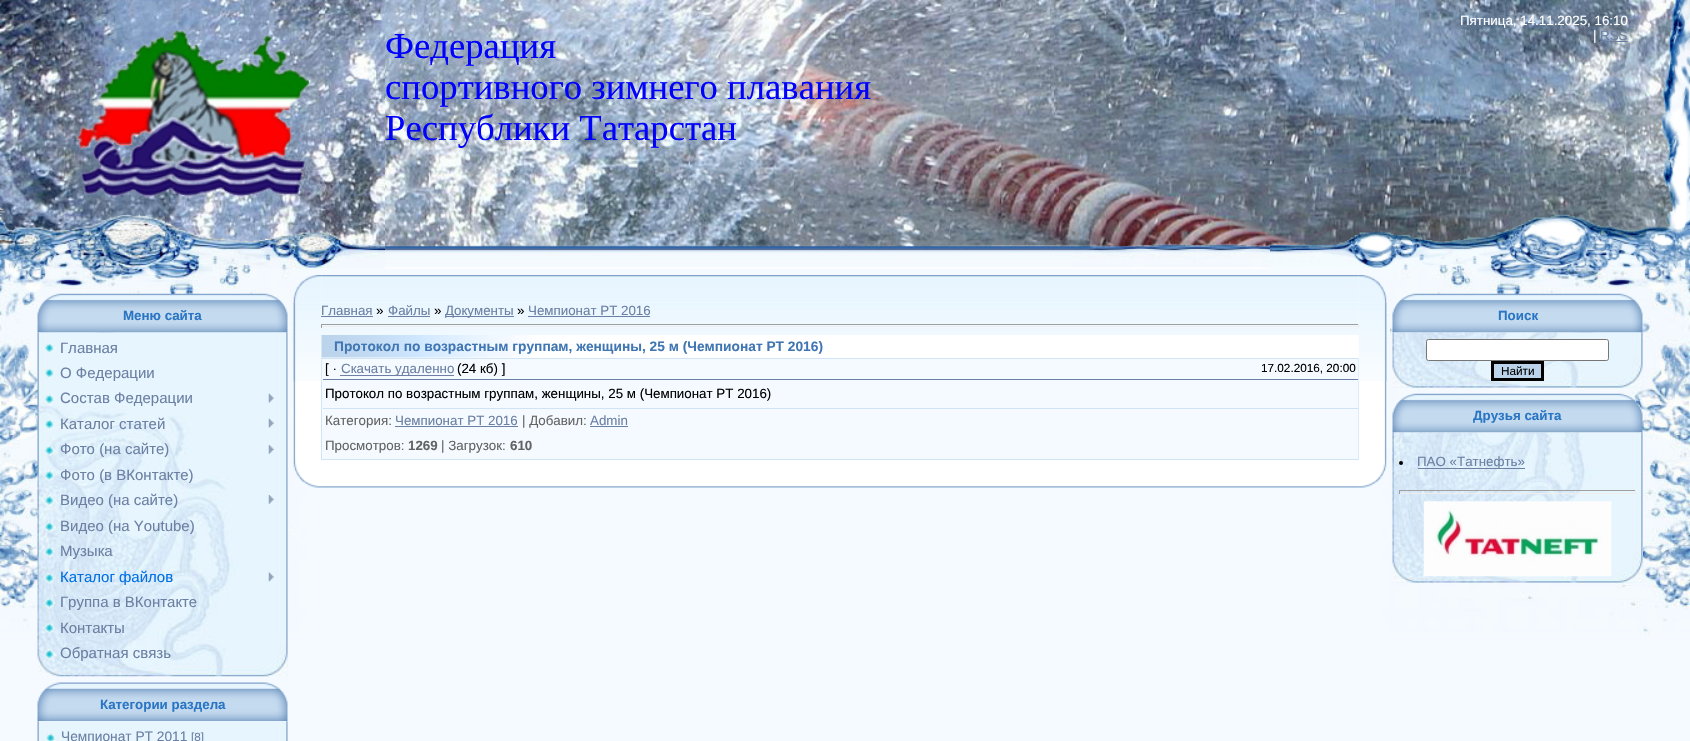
#include "include/core/SkBlurTypes.h"
#include "include/core/SkCanvas.h"
#include "include/core/SkData.h"
#include "include/core/SkFont.h"
#include "include/core/SkFontMgr.h"
#include "include/core/SkImage.h"
#include "include/core/SkMaskFilter.h"
#include "include/core/SkPaint.h"
#include "include/core/SkPathBuilder.h"
#include "include/core/SkTextBlob.h"
#include "include/effects/SkDashPathEffect.h"
#include "include/effects/SkGradientShader.h"
#include "include/utils/SkParsePath.h"

extern sk_sp<SkFontMgr> fontMgr;

void draw(SkCanvas* canvas) {
  SkPaint p;
  p.setAntiAlias(true);
  canvas->clear(SkColorSetRGB(244, 250, 255));
  canvas->drawImageRect(SkImages::DeferredFromEncodedData(SkData::MakeFromFileName("images/1.png")), SkRect::MakeLTRB(0, 0, 1690, 269), SkSamplingOptions());
  canvas->drawImageRect(SkImages::DeferredFromEncodedData(SkData::MakeFromFileName("images/5.png")), SkRect::MakeLTRB(0, 268, 308, 636), SkSamplingOptions());
  canvas->drawImageRect(SkImages::DeferredFromEncodedData(SkData::MakeFromFileName("images/2.png")), SkRect::MakeLTRB(0, 0, 385, 269), SkSamplingOptions());
  canvas->drawImageRect(SkImages::DeferredFromEncodedData(SkData::MakeFromFileName("images/3.png")), SkRect::MakeLTRB(1270, 0, 1690, 269), SkSamplingOptions());
  p.setColor(SkColorSetRGB(107, 128, 163));
  canvas->drawRect(SkRect::MakeLTRB(1600, 41, 1628, 42), p);
  canvas->drawImageRect(SkImages::DeferredFromEncodedData(SkData::MakeFromFileName("images/4.png")), SkRect::MakeLTRB(1382, 268, 1690, 636), SkSamplingOptions());
  canvas->drawImageRect(SkImages::DeferredFromEncodedData(SkData::MakeFromFileName("images/6.png")), SkRect::MakeLTRB(37, 293, 288, 333), SkSamplingOptions());
  p.setColor(SkColorSetRGB(231, 245, 255));
  canvas->drawRect(SkRect::MakeLTRB(287, 333, 288, 676), p);
  canvas->drawImageRect(SkImages::DeferredFromEncodedData(SkData::MakeFromFileName("images/7.png")), SkRect::MakeLTRB(37, 332, 288, 677), SkSamplingOptions());
  canvas->drawImageRect(SkImages::DeferredFromEncodedData(SkData::MakeFromFileName("images/8.png")), SkRect::MakeLTRB(44, 343, 55, 354), SkSamplingOptions());
  canvas->drawImageRect(SkImages::DeferredFromEncodedData(SkData::MakeFromFileName("images/8.png")), SkRect::MakeLTRB(44, 368, 55, 379), SkSamplingOptions());
  canvas->drawImageRect(SkImages::DeferredFromEncodedData(SkData::MakeFromFileName("images/9.png")), SkRect::MakeLTRB(44, 395, 55, 405), SkSamplingOptions());
  canvas->drawImageRect(SkImages::DeferredFromEncodedData(SkData::MakeFromFileName("images/10.png")), SkRect::MakeLTRB(268, 393, 274, 403), SkSamplingOptions());
  canvas->drawImageRect(SkImages::DeferredFromEncodedData(SkData::MakeFromFileName("images/11.png")), SkRect::MakeLTRB(44, 420, 55, 430), SkSamplingOptions());
  canvas->drawImageRect(SkImages::DeferredFromEncodedData(SkData::MakeFromFileName("images/10.png")), SkRect::MakeLTRB(268, 418, 274, 428), SkSamplingOptions());
  canvas->drawImageRect(SkImages::DeferredFromEncodedData(SkData::MakeFromFileName("images/12.png")), SkRect::MakeLTRB(44, 445, 55, 457), SkSamplingOptions());
  canvas->drawImageRect(SkImages::DeferredFromEncodedData(SkData::MakeFromFileName("images/13.png")), SkRect::MakeLTRB(268, 445, 274, 454), SkSamplingOptions());
  canvas->drawImageRect(SkImages::DeferredFromEncodedData(SkData::MakeFromFileName("images/14.png")), SkRect::MakeLTRB(43, 471, 55, 482), SkSamplingOptions());
  canvas->drawImageRect(SkImages::DeferredFromEncodedData(SkData::MakeFromFileName("images/15.png")), SkRect::MakeLTRB(44, 495, 55, 507), SkSamplingOptions());
  canvas->drawImageRect(SkImages::DeferredFromEncodedData(SkData::MakeFromFileName("images/13.png")), SkRect::MakeLTRB(268, 495, 274, 504), SkSamplingOptions());
  canvas->drawImageRect(SkImages::DeferredFromEncodedData(SkData::MakeFromFileName("images/16.png")), SkRect::MakeLTRB(44, 521, 55, 533), SkSamplingOptions());
  canvas->drawImageRect(SkImages::DeferredFromEncodedData(SkData::MakeFromFileName("images/17.png")), SkRect::MakeLTRB(44, 546, 55, 558), SkSamplingOptions());
  canvas->drawImageRect(SkImages::DeferredFromEncodedData(SkData::MakeFromFileName("images/18.png")), SkRect::MakeLTRB(43, 572, 55, 584), SkSamplingOptions());
  canvas->drawImageRect(SkImages::DeferredFromEncodedData(SkData::MakeFromFileName("images/19.png")), SkRect::MakeLTRB(268, 572, 274, 582), SkSamplingOptions());
  canvas->drawImageRect(SkImages::DeferredFromEncodedData(SkData::MakeFromFileName("images/20.png")), SkRect::MakeLTRB(43, 597, 55, 609), SkSamplingOptions());
  canvas->drawImageRect(SkImages::DeferredFromEncodedData(SkData::MakeFromFileName("images/21.png")), SkRect::MakeLTRB(44, 622, 55, 634), SkSamplingOptions());
  canvas->drawImageRect(SkImages::DeferredFromEncodedData(SkData::MakeFromFileName("images/22.png")), SkRect::MakeLTRB(43, 649, 55, 660), SkSamplingOptions());
  canvas->drawImageRect(SkImages::DeferredFromEncodedData(SkData::MakeFromFileName("images/23.png")), SkRect::MakeLTRB(37, 682, 288, 722), SkSamplingOptions());
  canvas->drawRect(SkRect::MakeLTRB(38, 721, 288, 741), p);
  canvas->drawImageRect(SkImages::DeferredFromEncodedData(SkData::MakeFromFileName("images/24.png")), SkRect::MakeLTRB(37, 721, 288, 741), SkSamplingOptions());
  canvas->drawImageRect(SkImages::DeferredFromEncodedData(SkData::MakeFromFileName("images/25.png")), SkRect::MakeLTRB(45, 733, 56, 741), SkSamplingOptions());
  canvas->drawImageRect(SkImages::DeferredFromEncodedData(SkData::MakeFromFileName("images/27.png")), SkRect::MakeLTRB(321, 275, 1359, 303), SkSamplingOptions());
  canvas->drawImageRect(SkImages::DeferredFromEncodedData(SkData::MakeFromFileName("images/29.png")), SkRect::MakeLTRB(293, 302, 321, 460), SkSamplingOptions());
  canvas->drawImageRect(SkImages::DeferredFromEncodedData(SkData::MakeFromFileName("images/26.png")), SkRect::MakeLTRB(293, 275, 322, 303), SkSamplingOptions());
  canvas->drawImageRect(SkImages::DeferredFromEncodedData(SkData::MakeFromFileName("images/31.png")), SkRect::MakeLTRB(321, 303, 1359, 335), SkSamplingOptions());
  p.setColor(SK_ColorWHITE);
  canvas->drawRect(SkRect::MakeLTRB(321, 335, 1359, 358), p);
  p.setStyle(SkPaint::kStroke_Style);
  p.setStrokeWidth(1);
  p.setColor(SkColorSetRGB(209, 228, 245));
  canvas->drawRect(SkRect::MakeLTRB(321.5f, 358.5f, 1358.5f, 459.5f), p);
  canvas->drawImageRect(SkImages::DeferredFromEncodedData(SkData::MakeFromFileName("images/33.png")), SkRect::MakeLTRB(1358, 302, 1387, 460), SkSamplingOptions());
  canvas->drawImageRect(SkImages::DeferredFromEncodedData(SkData::MakeFromFileName("images/28.png")), SkRect::MakeLTRB(1358, 275, 1387, 303), SkSamplingOptions());
  canvas->drawImageRect(SkImages::DeferredFromEncodedData(SkData::MakeFromFileName("images/32.png")), SkRect::MakeLTRB(321, 335, 532, 358), SkSamplingOptions());
  canvas->drawImageRect(SkImages::DeferredFromEncodedData(SkData::MakeFromFileName("images/30.png")), SkRect::MakeLTRB(293, 302, 322, 382), SkSamplingOptions());
  p.setStyle(SkPaint::kFill_Style);
  p.setColor(SkColorSetRGB(107, 128, 163));
  canvas->drawRect(SkRect::MakeLTRB(321, 316, 373, 317), p);
  canvas->drawRect(SkRect::MakeLTRB(388, 316, 430, 317), p);
  canvas->drawRect(SkRect::MakeLTRB(445, 316, 514, 317), p);
  canvas->drawRect(SkRect::MakeLTRB(528, 316, 650, 317), p);
  canvas->drawImageRect(SkImages::DeferredFromEncodedData(SkData::MakeFromFileName("images/34.png")), SkRect::MakeLTRB(1358, 302, 1387, 382), SkSamplingOptions());
  p.setColor(SkColorSetRGB(159, 159, 159));
  canvas->drawRect(SkRect::MakeLTRB(321, 324, 1359, 325), p);
  p.setColor(SkColorSetRGB(238, 238, 238));
  canvas->drawRect(SkRect::MakeLTRB(1358, 324, 1359, 328), p);
  canvas->drawRect(SkRect::MakeLTRB(321, 326, 1359, 327), p);
  p.setColor(SkColorSetRGB(159, 159, 159));
  canvas->drawRect(SkRect::MakeLTRB(321, 324, 322, 328), p);
  p.setColor(SkColorSetRGB(107, 128, 163));
  canvas->drawRect(SkRect::MakeLTRB(340, 375, 454, 376), p);
  canvas->drawRect(SkRect::MakeLTRB(323, 379, 1358, 380), p);
  p.setColor(SkColorSetRGB(209, 228, 245));
  canvas->drawRect(SkRect::MakeLTRB(323, 408, 1358, 409), p);
  p.setColor(SkColorSetRGB(107, 128, 163));
  canvas->drawRect(SkRect::MakeLTRB(395, 426, 518, 427), p);
  canvas->drawRect(SkRect::MakeLTRB(590, 426, 628, 427), p);
  canvas->drawImageRect(SkImages::DeferredFromEncodedData(SkData::MakeFromFileName("images/36.png")), SkRect::MakeLTRB(321, 460, 1359, 488), SkSamplingOptions());
  canvas->drawImageRect(SkImages::DeferredFromEncodedData(SkData::MakeFromFileName("images/35.png")), SkRect::MakeLTRB(293, 460, 322, 488), SkSamplingOptions());
  canvas->drawImageRect(SkImages::DeferredFromEncodedData(SkData::MakeFromFileName("images/37.png")), SkRect::MakeLTRB(1358, 460, 1387, 488), SkSamplingOptions());
  canvas->drawImageRect(SkImages::DeferredFromEncodedData(SkData::MakeFromFileName("images/38.png")), SkRect::MakeLTRB(1392, 293, 1643, 333), SkSamplingOptions());
  p.setColor(SkColorSetRGB(231, 245, 255));
  canvas->drawRect(SkRect::MakeLTRB(1393, 333, 1643, 388), p);
  canvas->drawImageRect(SkImages::DeferredFromEncodedData(SkData::MakeFromFileName("images/39.png")), SkRect::MakeLTRB(1392, 332, 1643, 388), SkSamplingOptions());
  p.setColor(SK_ColorWHITE);
  canvas->drawRoundRect(SkRect::MakeLTRB(1426.5f, 339.5f, 1608.5f, 360.5f), 2, 2, p);
  p.setStyle(SkPaint::kStroke_Style);
  p.setColor(SkColorSetRGB(118, 118, 118));
  canvas->drawRoundRect(SkRect::MakeLTRB(1426.5f, 339.5f, 1608.5f, 360.5f), 2, 2, p);
  p.setStyle(SkPaint::kFill_Style);
  p.setColor(SkColorSetRGB(188, 212, 235));
  canvas->drawRect(SkRect::MakeLTRB(1492.5f, 362.5f, 1542.5f, 379.5f), p);
  p.setStyle(SkPaint::kStroke_Style);
  p.setStrokeWidth(3);
  p.setColor(SK_ColorBLACK);
  canvas->drawRect(SkRect::MakeLTRB(1492.5f, 362.5f, 1542.5f, 379.5f), p);
  canvas->drawImageRect(SkImages::DeferredFromEncodedData(SkData::MakeFromFileName("images/40.png")), SkRect::MakeLTRB(1392, 393, 1643, 433), SkSamplingOptions());
  p.setStyle(SkPaint::kFill_Style);
  p.setColor(SkColorSetRGB(231, 245, 255));
  canvas->drawRect(SkRect::MakeLTRB(1393, 433, 1643, 583), p);
  canvas->drawImageRect(SkImages::DeferredFromEncodedData(SkData::MakeFromFileName("images/41.png")), SkRect::MakeLTRB(1392, 432, 1643, 583), SkSamplingOptions());
  p.setColor(SK_ColorBLACK);
  canvas->drawCircle(1401, 463, 2, p);
  p.setColor(SkColorSetRGB(107, 128, 163));
  canvas->drawRect(SkRect::MakeLTRB(1418, 468, 1525, 469), p);
  p.setColor(SkColorSetRGB(159, 159, 159));
  canvas->drawRect(SkRect::MakeLTRB(1399, 490, 1636, 491), p);
  p.setColor(SkColorSetRGB(238, 238, 238));
  canvas->drawRect(SkRect::MakeLTRB(1635, 490, 1636, 494), p);
  canvas->drawRect(SkRect::MakeLTRB(1399, 493, 1636, 494), p);
  p.setColor(SkColorSetRGB(159, 159, 159));
  canvas->drawRect(SkRect::MakeLTRB(1399, 490, 1400, 494), p);
  canvas->drawImageRect(SkImages::DeferredFromEncodedData(SkData::MakeFromFileName("images/42.png")), SkRect::MakeLTRB(1423, 501, 1612, 577), SkSamplingOptions());
  SkFont font1(fontMgr->matchFamilyStyle("Liberation Sans", SkFontStyle::Normal()), 13.35f);
  font1.setSubpixel(true);
  p.setColor(SK_ColorWHITE);
  canvas->drawString("Пятница, 14.11.2025, 16:10", 1460, 25, font1, p);
  canvas->drawString("|", 1593, 40, font1, p);
  p.setColor(SkColorSetRGB(107, 128, 163));
  canvas->drawString("RSS", 1600, 40, font1, p);
  SkFont font2(fontMgr->matchFamilyStyle("Liberation Serif", SkFontStyle::Normal()), 36.7f);
  font2.setSubpixel(true);
  p.setColor(SkColorSetRGB(0, 0, 255));
  canvas->drawString("Федерация", 385, 58, font2, p);
  canvas->drawString("спортивного зимнего плавания", 385, 99, font2, p);
  canvas->drawString("Республики Татарстан", 385, 140, font2, p);
  SkFont font3(fontMgr->matchFamilyStyle("Liberation Sans", SkFontStyle::Bold()), 13.35f);
  font3.setSubpixel(true);
  p.setColor(SkColorSetRGB(42, 117, 196));
  canvas->drawString("Меню сайта", 123, 320, font3, p);
  SkFont font4(fontMgr->matchFamilyStyle("Liberation Sans", SkFontStyle::Normal()), 15);
  font4.setSubpixel(true);
  p.setColor(SkColorSetRGB(107, 128, 163));
  canvas->drawString("Главная", 60, 353, font4, p);
  canvas->drawString("О Федерации", 60, 378, font4, p);
  canvas->drawString("Состав Федерации", 60, 403, font4, p);
  canvas->drawString("Каталог статей", 60, 429, font4, p);
  canvas->drawString("Фото (на сайте)", 60, 454, font4, p);
  canvas->drawString("Фото (в ВКонтакте)", 60, 480, font4, p);
  canvas->drawString("Видео (на сайте)", 60, 505, font4, p);
  canvas->drawString("Видео (на Youtube)", 60, 531, font4, p);
  canvas->drawString("Музыка", 60, 556, font4, p);
  p.setColor(SkColorSetRGB(0, 111, 227));
  canvas->drawString("Каталог файлов", 60, 582, font4, p);
  p.setColor(SkColorSetRGB(107, 128, 163));
  canvas->drawString("Группа в ВКонтакте", 60, 607, font4, p);
  canvas->drawString("Контакты", 60, 633, font4, p);
  canvas->drawString("Обратная связь", 60, 658, font4, p);
  p.setColor(SkColorSetRGB(42, 117, 196));
  canvas->drawString("Категории раздела", 100, 709, font3, p);
  SkFont font5(fontMgr->matchFamilyStyle("Liberation Sans", SkFontStyle::Normal()), 13.75f);
  font5.setSubpixel(true);
  p.setColor(SkColorSetRGB(107, 128, 163));
  canvas->drawString("Чемпионат РТ 2011", 61, 741, font5, p);
  SkFont font6(fontMgr->matchFamilyStyle("Liberation Sans", SkFontStyle::Normal()), 11.75f);
  font6.setSubpixel(true);
  canvas->drawString("[8]", 191, 741, font6, p);
  canvas->drawString("Главная", 321, 315, font1, p);
  p.setColor(SK_ColorBLACK);
  canvas->drawString("»", 376, 315, font1, p);
  p.setColor(SkColorSetRGB(107, 128, 163));
  canvas->drawString("Файлы", 388, 315, font1, p);
  p.setColor(SK_ColorBLACK);
  canvas->drawString("»", 434, 315, font1, p);
  p.setColor(SkColorSetRGB(107, 128, 163));
  canvas->drawString("Документы", 445, 315, font1, p);
  p.setColor(SK_ColorBLACK);
  canvas->drawString("»", 517, 315, font1, p);
  p.setColor(SkColorSetRGB(107, 128, 163));
  canvas->drawString("Чемпионат РТ 2016", 528, 315, font1, p);
  SkFont font7(fontMgr->matchFamilyStyle("Liberation Sans", SkFontStyle::Bold()), 13.75f);
  font7.setSubpixel(true);
  p.setColor(SkColorSetRGB(63, 118, 179));
  canvas->drawString("Протокол по возрастным группам, женщины, 25 м (Чемпионат РТ 2016)", 334, 351, font7, p);
  p.setColor(SK_ColorBLACK);
  canvas->drawString("[ ·", 325, 373, font1, p);
  p.setColor(SkColorSetRGB(107, 128, 163));
  canvas->drawString("Скачать удаленно", 341, 373, font1, p);
  p.setColor(SK_ColorBLACK);
  canvas->drawString("(24 кб) ]", 457, 373, font1, p);
  canvas->drawString("17.02.2016, 20:00", 1261, 372, font6, p);
  canvas->drawString("Протокол по возрастным группам, женщины, 25 м (Чемпионат РТ 2016)", 325, 398, font1, p);
  p.setColor(SkColorSetRGB(99, 99, 99));
  canvas->drawString("Категория:", 325, 425, font1, p);
  p.setColor(SkColorSetRGB(107, 128, 163));
  canvas->drawString("Чемпионат РТ 2016", 395, 425, font1, p);
  p.setColor(SkColorSetRGB(99, 99, 99));
  canvas->drawString("| Добавил:", 522, 425, font1, p);
  p.setColor(SkColorSetRGB(107, 128, 163));
  canvas->drawString("Admin", 590, 425, font1, p);
  p.setColor(SkColorSetRGB(99, 99, 99));
  canvas->drawString("Просмотров:", 325, 450, font1, p);
  canvas->drawString("1269", 408, 450, font3, p);
  canvas->drawString("| Загрузок:", 441, 450, font1, p);
  canvas->drawString("610", 510, 450, font3, p);
  p.setColor(SkColorSetRGB(42, 117, 196));
  canvas->drawString("Поиск", 1498, 320, font3, p);
  p.setColor(SK_ColorBLACK);
  canvas->drawString("Найти", 1501, 375, font6, p);
  p.setColor(SkColorSetRGB(42, 117, 196));
  canvas->drawString("Друзья сайта", 1473, 420, font3, p);
  p.setColor(SkColorSetRGB(107, 128, 163));
  canvas->drawString("ПАО «Татнефть»", 1417, 466, font1, p);
}
